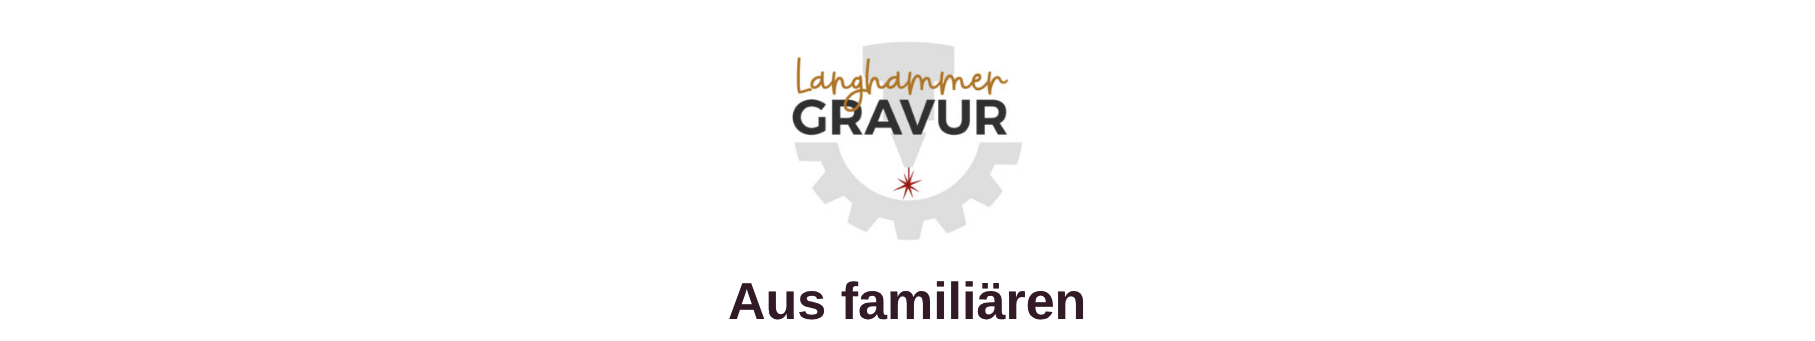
#include "include/core/SkBlurTypes.h"
#include "include/core/SkCanvas.h"
#include "include/core/SkData.h"
#include "include/core/SkFont.h"
#include "include/core/SkFontMgr.h"
#include "include/core/SkImage.h"
#include "include/core/SkMaskFilter.h"
#include "include/core/SkPaint.h"
#include "include/core/SkPathBuilder.h"
#include "include/core/SkTextBlob.h"
#include "include/effects/SkDashPathEffect.h"
#include "include/effects/SkGradientShader.h"
#include "include/utils/SkParsePath.h"

extern sk_sp<SkFontMgr> fontMgr;

void draw(SkCanvas* canvas) {
  SkPaint p;
  p.setAntiAlias(true);
  canvas->clear(SK_ColorWHITE);
  canvas->drawImageRect(SkImages::DeferredFromEncodedData(SkData::MakeFromFileName("images/1.png")), SkRect::MakeLTRB(791, 41, 1023, 241), SkSamplingOptions());
  SkFont font1(fontMgr->matchFamilyStyle("Liberation Sans", SkFontStyle::Bold()), 52);
  font1.setSubpixel(true);
  p.setColor(SkColorSetRGB(50, 27, 38));
  canvas->drawString("Aus familiären", 728, 319, font1, p);
}
